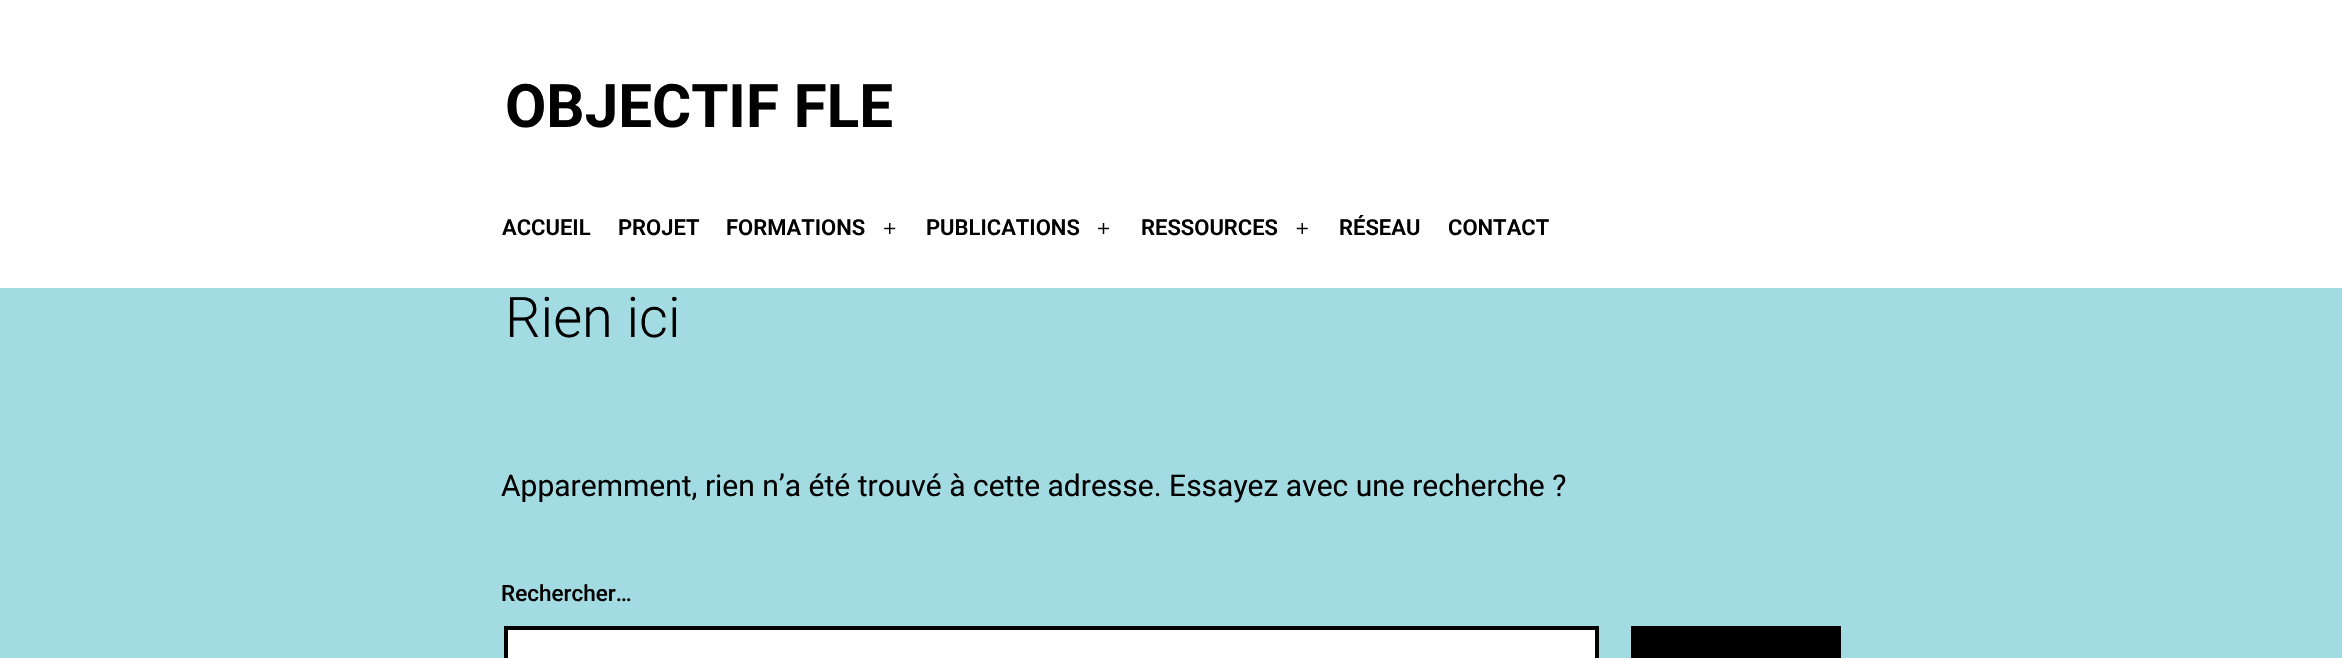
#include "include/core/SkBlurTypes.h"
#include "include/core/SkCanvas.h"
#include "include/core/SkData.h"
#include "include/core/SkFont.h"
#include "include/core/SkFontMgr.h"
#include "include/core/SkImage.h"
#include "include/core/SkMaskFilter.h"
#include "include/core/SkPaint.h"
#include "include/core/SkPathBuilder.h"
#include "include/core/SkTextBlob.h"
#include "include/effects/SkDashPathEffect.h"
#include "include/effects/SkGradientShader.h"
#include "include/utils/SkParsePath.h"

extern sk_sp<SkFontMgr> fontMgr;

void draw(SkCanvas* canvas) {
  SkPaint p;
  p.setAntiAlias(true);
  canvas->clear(SkColorSetRGB(163, 219, 226));
  p.setColor(SK_ColorWHITE);
  canvas->drawRect(SkRect::MakeLTRB(0, 0, 2342, 288), p);
  canvas->drawImageRect(SkImages::DeferredFromEncodedData(SkData::MakeFromFileName("images/1.png")), SkRect::MakeLTRB(884, 223, 896, 234), SkSamplingOptions());
  canvas->drawImageRect(SkImages::DeferredFromEncodedData(SkData::MakeFromFileName("images/2.png")), SkRect::MakeLTRB(1098, 223, 1109, 234), SkSamplingOptions());
  canvas->drawImageRect(SkImages::DeferredFromEncodedData(SkData::MakeFromFileName("images/3.png")), SkRect::MakeLTRB(1296, 223, 1308, 234), SkSamplingOptions());
  canvas->drawRect(SkRect::MakeLTRB(506, 628, 1597, 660), p);
  p.setStyle(SkPaint::kStroke_Style);
  p.setStrokeWidth(4);
  p.setColor(SK_ColorBLACK);
  canvas->drawRect(SkRect::MakeLTRB(506, 628, 1597, 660), p);
  p.setStyle(SkPaint::kFill_Style);
  canvas->drawRect(SkRect::MakeLTRB(1631, 626, 1841, 658), p);
  SkFont font1(fontMgr->matchFamilyStyle("Roboto", SkFontStyle::Bold()), 60);
  font1.setSubpixel(true);
  canvas->drawString("OBJECTIF FLE", 505, 127, font1, p);
  SkFont font2(fontMgr->matchFamilyStyle("Roboto", SkFontStyle(600, SkFontStyle::kNormal_Width, SkFontStyle::kUpright_Slant)), 22);
  font2.setSubpixel(true);
  canvas->drawString("ACCUEIL", 502, 235, font2, p);
  canvas->drawString("PROJET", 618, 235, font2, p);
  canvas->drawString("FORMATIONS", 726, 235, font2, p);
  canvas->drawString("PUBLICATIONS", 926, 235, font2, p);
  canvas->drawString("RESSOURCES", 1141, 235, font2, p);
  canvas->drawString("RÉSEAU", 1339, 235, font2, p);
  canvas->drawString("CONTACT", 1448, 235, font2, p);
  SkFont font3(fontMgr->matchFamilyStyle("Roboto", SkFontStyle(300, SkFontStyle::kNormal_Width, SkFontStyle::kUpright_Slant)), 56);
  font3.setSubpixel(true);
  canvas->drawString("Rien ici", 505, 337, font3, p);
  SkFont font4(fontMgr->matchFamilyStyle("Roboto", SkFontStyle::Normal()), 30);
  font4.setSubpixel(true);
  canvas->drawString("Apparemment, rien n’a été trouvé à cette adresse. Essayez avec une recherche ?", 501, 496, font4, p);
  SkFont font5(fontMgr->matchFamilyStyle("Roboto", SkFontStyle(500, SkFontStyle::kNormal_Width, SkFontStyle::kUpright_Slant)), 22.5f);
  font5.setSubpixel(true);
  canvas->drawString("Rechercher…", 501, 601, font5, p);
}
